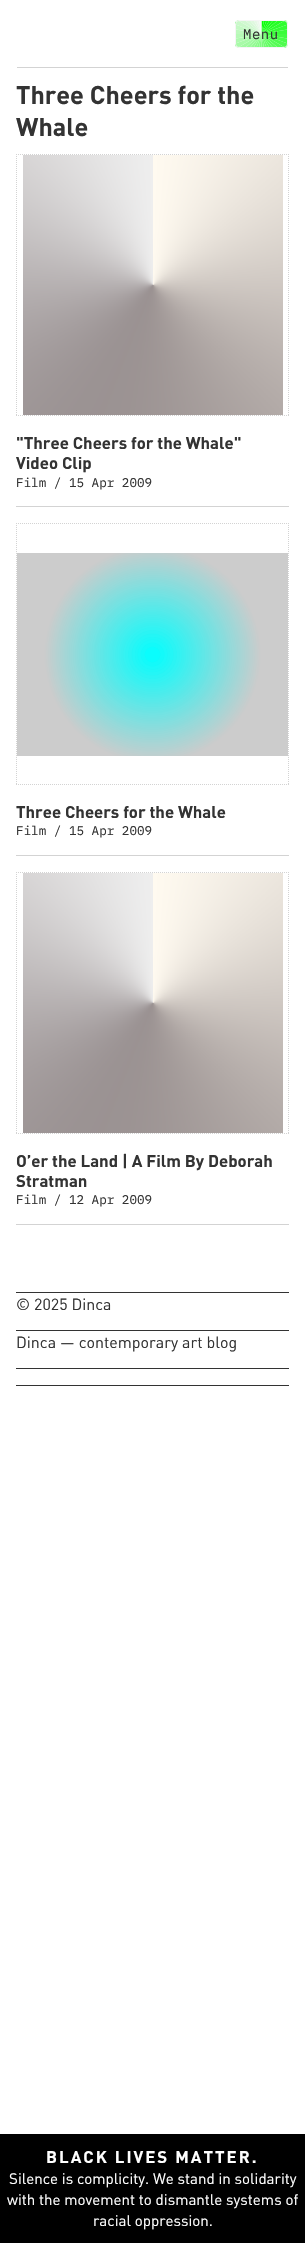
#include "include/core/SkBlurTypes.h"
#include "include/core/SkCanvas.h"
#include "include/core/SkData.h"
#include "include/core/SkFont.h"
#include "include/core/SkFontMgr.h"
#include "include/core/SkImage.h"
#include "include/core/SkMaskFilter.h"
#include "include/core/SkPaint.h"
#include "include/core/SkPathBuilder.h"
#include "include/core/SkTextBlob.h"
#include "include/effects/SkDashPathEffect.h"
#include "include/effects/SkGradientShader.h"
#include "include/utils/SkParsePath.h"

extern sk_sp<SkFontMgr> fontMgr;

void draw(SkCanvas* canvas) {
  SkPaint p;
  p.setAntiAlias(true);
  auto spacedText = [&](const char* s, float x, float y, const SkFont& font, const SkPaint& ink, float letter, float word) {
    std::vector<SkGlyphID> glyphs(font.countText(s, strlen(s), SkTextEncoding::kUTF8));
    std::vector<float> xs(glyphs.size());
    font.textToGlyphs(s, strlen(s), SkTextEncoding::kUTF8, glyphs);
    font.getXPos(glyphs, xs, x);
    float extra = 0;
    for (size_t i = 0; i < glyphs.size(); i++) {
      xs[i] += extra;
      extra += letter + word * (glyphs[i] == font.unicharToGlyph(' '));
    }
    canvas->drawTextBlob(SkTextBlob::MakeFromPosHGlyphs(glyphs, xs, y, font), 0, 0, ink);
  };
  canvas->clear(SK_ColorWHITE);
  p.setColor(SkColorSetRGB(211, 211, 211));
  canvas->drawRect(SkRect::MakeLTRB(17, 67, 288, 68), p);
  canvas->drawImageRect(SkImages::DeferredFromEncodedData(SkData::MakeFromFileName("images/1.png")), SkRect::MakeLTRB(235, 20, 288, 48), SkSamplingOptions());
  p.setStyle(SkPaint::kStroke_Style);
  p.setStrokeWidth(1);
  p.setColor(SkColorSetRGB(245, 245, 245));
  canvas->drawRoundRect(SkRect::MakeLTRB(235.5f, 20.5f, 287.5f, 47.5f), 3.5f, 3.5f, p);
  p.setStyle(SkPaint::kFill_Style);
  p.setColor(SkColorSetRGB(211, 211, 211));
  canvas->drawRect(SkRect::MakeLTRB(16, 506, 289, 507), p);
  canvas->drawImageRect(SkImages::DeferredFromEncodedData(SkData::MakeFromFileName("images/2.png")), SkRect::MakeLTRB(23, 155, 283, 415), SkSamplingOptions());
  p.setStyle(SkPaint::kStroke_Style);
  p.setPathEffect(SkDashPathEffect::Make({{1, 1}}, 0));
  canvas->drawPath(SkPathBuilder().moveTo(16, 154.5f).lineTo(289, 154.5f).detach(), p);
  p.setPathEffect(nullptr);
  p.setPathEffect(SkDashPathEffect::Make({{1, 1}}, 0));
  canvas->drawPath(SkPathBuilder().moveTo(288.5f, 154).lineTo(288.5f, 416).detach(), p);
  p.setPathEffect(nullptr);
  p.setPathEffect(SkDashPathEffect::Make({{1, 1}}, 0));
  canvas->drawPath(SkPathBuilder().moveTo(16, 415.5f).lineTo(289, 415.5f).detach(), p);
  p.setPathEffect(nullptr);
  p.setPathEffect(SkDashPathEffect::Make({{1, 1}}, 0));
  canvas->drawPath(SkPathBuilder().moveTo(16.5f, 154).lineTo(16.5f, 416).detach(), p);
  p.setPathEffect(nullptr);
  p.setStyle(SkPaint::kFill_Style);
  canvas->drawRect(SkRect::MakeLTRB(16, 855, 289, 856), p);
  canvas->drawImageRect(SkImages::DeferredFromEncodedData(SkData::MakeFromFileName("images/3.png")), SkRect::MakeLTRB(17, 553, 288, 756), SkSamplingOptions());
  p.setStyle(SkPaint::kStroke_Style);
  p.setPathEffect(SkDashPathEffect::Make({{1, 1}}, 0));
  canvas->drawPath(SkPathBuilder().moveTo(16, 523.5f).lineTo(289, 523.5f).detach(), p);
  p.setPathEffect(nullptr);
  p.setPathEffect(SkDashPathEffect::Make({{1, 1}}, 0));
  canvas->drawPath(SkPathBuilder().moveTo(288.5f, 523).lineTo(288.5f, 785).detach(), p);
  p.setPathEffect(nullptr);
  p.setPathEffect(SkDashPathEffect::Make({{1, 1}}, 0));
  canvas->drawPath(SkPathBuilder().moveTo(16, 784.5f).lineTo(289, 784.5f).detach(), p);
  p.setPathEffect(nullptr);
  p.setPathEffect(SkDashPathEffect::Make({{1, 1}}, 0));
  canvas->drawPath(SkPathBuilder().moveTo(16.5f, 523).lineTo(16.5f, 785).detach(), p);
  p.setPathEffect(nullptr);
  p.setStyle(SkPaint::kFill_Style);
  canvas->drawRect(SkRect::MakeLTRB(16, 1224, 289, 1225), p);
  canvas->drawImageRect(SkImages::DeferredFromEncodedData(SkData::MakeFromFileName("images/4.png")), SkRect::MakeLTRB(23, 873, 283, 1133), SkSamplingOptions());
  p.setStyle(SkPaint::kStroke_Style);
  p.setPathEffect(SkDashPathEffect::Make({{1, 1}}, 0));
  canvas->drawPath(SkPathBuilder().moveTo(16, 872.5f).lineTo(289, 872.5f).detach(), p);
  p.setPathEffect(nullptr);
  p.setPathEffect(SkDashPathEffect::Make({{1, 1}}, 0));
  canvas->drawPath(SkPathBuilder().moveTo(288.5f, 872).lineTo(288.5f, 1134).detach(), p);
  p.setPathEffect(nullptr);
  p.setPathEffect(SkDashPathEffect::Make({{1, 1}}, 0));
  canvas->drawPath(SkPathBuilder().moveTo(16, 1133.5f).lineTo(289, 1133.5f).detach(), p);
  p.setPathEffect(nullptr);
  p.setPathEffect(SkDashPathEffect::Make({{1, 1}}, 0));
  canvas->drawPath(SkPathBuilder().moveTo(16.5f, 872).lineTo(16.5f, 1134).detach(), p);
  p.setPathEffect(nullptr);
  p.setStyle(SkPaint::kFill_Style);
  p.setColor(SkColorSetRGB(51, 51, 51));
  canvas->drawRect(SkRect::MakeLTRB(16, 1292, 289, 1293), p);
  canvas->drawRect(SkRect::MakeLTRB(16, 1330, 289, 1331), p);
  canvas->drawRect(SkRect::MakeLTRB(16, 1385, 289, 1386), p);
  canvas->drawRect(SkRect::MakeLTRB(16, 1368, 289, 1369), p);
  p.setColor(SK_ColorBLACK);
  canvas->drawRect(SkRect::MakeLTRB(0, 2134, 305, 2243), p);
  SkFont font1(fontMgr->matchFamilyStyle("IBM Plex Mono", SkFontStyle::Normal()), 14);
  font1.setSubpixel(true);
  p.setColor(SkColorSetRGB(51, 51, 51));
  spacedText("Menu", 243, 39, font1, p, 0.5f, 0);
  SkFont font2(fontMgr->matchFamilyStyle("DIN", SkFontStyle::Bold()), 25.25f);
  font2.setSubpixel(true);
  canvas->drawString("Three Cheers for the", 16, 104, font2, p);
  canvas->drawString("Whale", 16, 136, font2, p);
  SkFont font3(fontMgr->matchFamilyStyle("DIN", SkFontStyle::Bold()), 16.75f);
  font3.setSubpixel(true);
  canvas->drawString("\"Three Cheers for the Whale\"", 16, 449, font3, p);
  canvas->drawString("Video Clip", 16, 469, font3, p);
  SkFont font4(fontMgr->matchFamilyStyle("IBM Plex Mono", SkFontStyle::Normal()), 12.6f);
  font4.setSubpixel(true);
  canvas->drawString("Film / 15 Apr 2009", 16, 487, font4, p);
  canvas->drawString("Three Cheers for the Whale", 16, 818, font3, p);
  canvas->drawString("Film / 15 Apr 2009", 16, 835, font4, p);
  canvas->drawString("O’er the Land | A Film By Deborah", 16, 1167, font3, p);
  canvas->drawString("Stratman", 16, 1187, font3, p);
  canvas->drawString("Film / 12 Apr 2009", 16, 1204, font4, p);
  SkFont font5(fontMgr->matchFamilyStyle("DIN", SkFontStyle::Normal()), 16);
  font5.setSubpixel(true);
  canvas->drawString("© 2025 Dinca", 16, 1310, font5, p);
  canvas->drawString("Dinca — contemporary art blog", 16, 1348, font5, p);
  p.setColor(SK_ColorWHITE);
  spacedText("BLACK LIVES MATTER.", 46, 2163, font3, p, 2, 0);
  SkFont font6(fontMgr->matchFamilyStyle("DIN", SkFontStyle::Normal()), 15.1f);
  font6.setSubpixel(true);
  canvas->drawString("Silence is complicity. We stand in solidarity", 9, 2184, font6, p);
  canvas->drawString("with the movement to dismantle systems of", 7, 2205, font6, p);
  canvas->drawString("racial oppression.", 93, 2226, font6, p);
}
